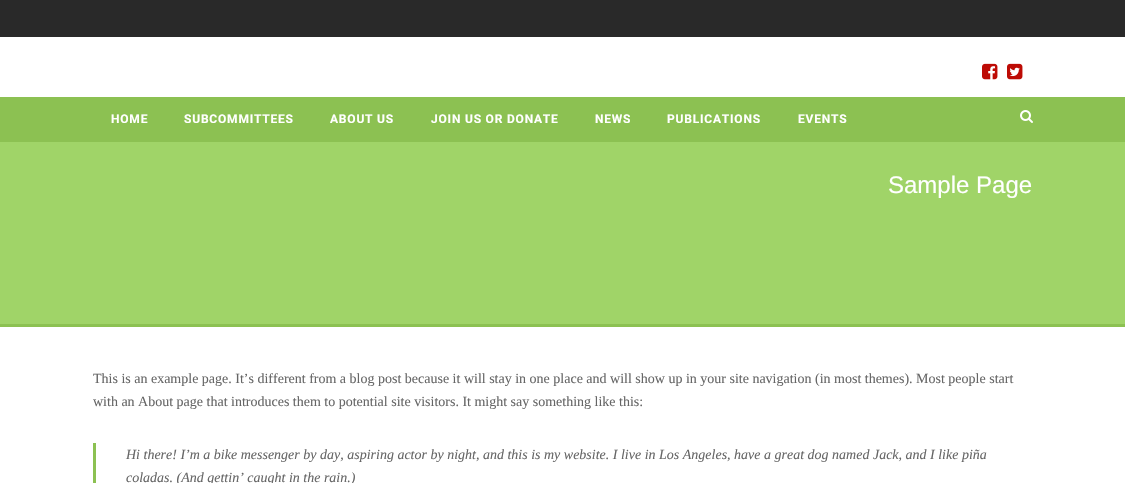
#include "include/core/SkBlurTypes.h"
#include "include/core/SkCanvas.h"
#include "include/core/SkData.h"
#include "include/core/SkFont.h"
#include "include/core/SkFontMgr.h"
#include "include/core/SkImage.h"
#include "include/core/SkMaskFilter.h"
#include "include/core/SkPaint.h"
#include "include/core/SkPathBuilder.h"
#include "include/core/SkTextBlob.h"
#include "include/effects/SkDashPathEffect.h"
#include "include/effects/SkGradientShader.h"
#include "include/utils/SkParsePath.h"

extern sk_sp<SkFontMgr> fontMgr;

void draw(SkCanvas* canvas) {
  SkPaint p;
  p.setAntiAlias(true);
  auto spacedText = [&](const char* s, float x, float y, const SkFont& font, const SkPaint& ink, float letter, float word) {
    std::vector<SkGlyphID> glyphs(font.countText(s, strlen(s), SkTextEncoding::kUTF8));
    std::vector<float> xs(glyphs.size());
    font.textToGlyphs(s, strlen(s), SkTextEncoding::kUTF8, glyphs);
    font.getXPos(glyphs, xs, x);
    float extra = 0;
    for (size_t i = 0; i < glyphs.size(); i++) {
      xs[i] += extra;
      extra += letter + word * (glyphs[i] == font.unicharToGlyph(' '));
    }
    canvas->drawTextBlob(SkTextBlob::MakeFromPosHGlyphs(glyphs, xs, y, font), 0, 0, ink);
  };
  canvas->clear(SK_ColorWHITE);
  p.setColor(SkColorSetRGB(41, 41, 41));
  canvas->drawRect(SkRect::MakeLTRB(0, 0, 1125, 37), p);
  canvas->drawImageRect(SkImages::DeferredFromEncodedData(SkData::MakeFromFileName("images/1.png")), SkRect::MakeLTRB(982, 63, 998, 80), SkSamplingOptions());
  canvas->drawImageRect(SkImages::DeferredFromEncodedData(SkData::MakeFromFileName("images/2.png")), SkRect::MakeLTRB(1007, 63, 1023, 80), SkSamplingOptions());
  p.setColor(SkColorSetRGB(140, 193, 82));
  canvas->drawRect(SkRect::MakeLTRB(0, 97, 1125, 142), p);
  canvas->drawImageRect(SkImages::DeferredFromEncodedData(SkData::MakeFromFileName("images/3.png")), SkRect::MakeLTRB(1020, 110, 1033, 123), SkSamplingOptions());
  p.setColor(SkColorSetRGB(160, 212, 104));
  canvas->drawRect(SkRect::MakeLTRB(0, 142, 1125, 324), p);
  p.setColor(SkColorSetRGB(140, 193, 82));
  canvas->drawRect(SkRect::MakeLTRB(0, 324, 1125, 327), p);
  canvas->drawRect(SkRect::MakeLTRB(93, 443, 96, 483), p);
  SkFont font1(fontMgr->matchFamilyStyle("Roboto", SkFontStyle::Bold()), 12);
  font1.setSubpixel(true);
  p.setColor(SK_ColorWHITE);
  spacedText("HOME", 111, 123, font1, p, 0.8f, 0);
  spacedText("SUBCOMMITTEES", 184, 123, font1, p, 0.8f, 0);
  spacedText("ABOUT US", 330, 123, font1, p, 0.8f, 0);
  spacedText("JOIN US OR DONATE", 431, 123, font1, p, 0.8f, 0);
  spacedText("NEWS", 595, 123, font1, p, 0.8f, 0);
  spacedText("PUBLICATIONS", 667, 123, font1, p, 0.8f, 0);
  spacedText("EVENTS", 798, 123, font1, p, 0.8f, 0);
  SkFont font2(fontMgr->matchFamilyStyle("Liberation Sans", SkFontStyle::Normal()), 24);
  font2.setSubpixel(true);
  canvas->drawString("Sample Page", 888, 193, font2, p);
  SkFont font3(fontMgr->matchFamilyStyle("Liberation Serif", SkFontStyle::Normal()), 14);
  font3.setSubpixel(true);
  p.setColor(SkColorSetRGB(102, 102, 102));
  canvas->drawString("This is an example page. It’s different from a blog post because it will stay in one place and will show up in your site navigation (in most themes). Most people start", 93, 383, font3, p);
  canvas->drawString("with an About page that introduces them to potential site visitors. It might say something like this:", 93, 406, font3, p);
  SkFont font4(fontMgr->matchFamilyStyle("Liberation Serif", SkFontStyle::Italic()), 14);
  font4.setSubpixel(true);
  canvas->drawString("Hi there! I’m a bike messenger by day, aspiring actor by night, and this is my website. I live in Los Angeles, have a great dog named Jack, and I like piña", 126, 459, font4, p);
  canvas->drawString("coladas. (And gettin’ caught in the rain.)", 126, 482, font4, p);
}
